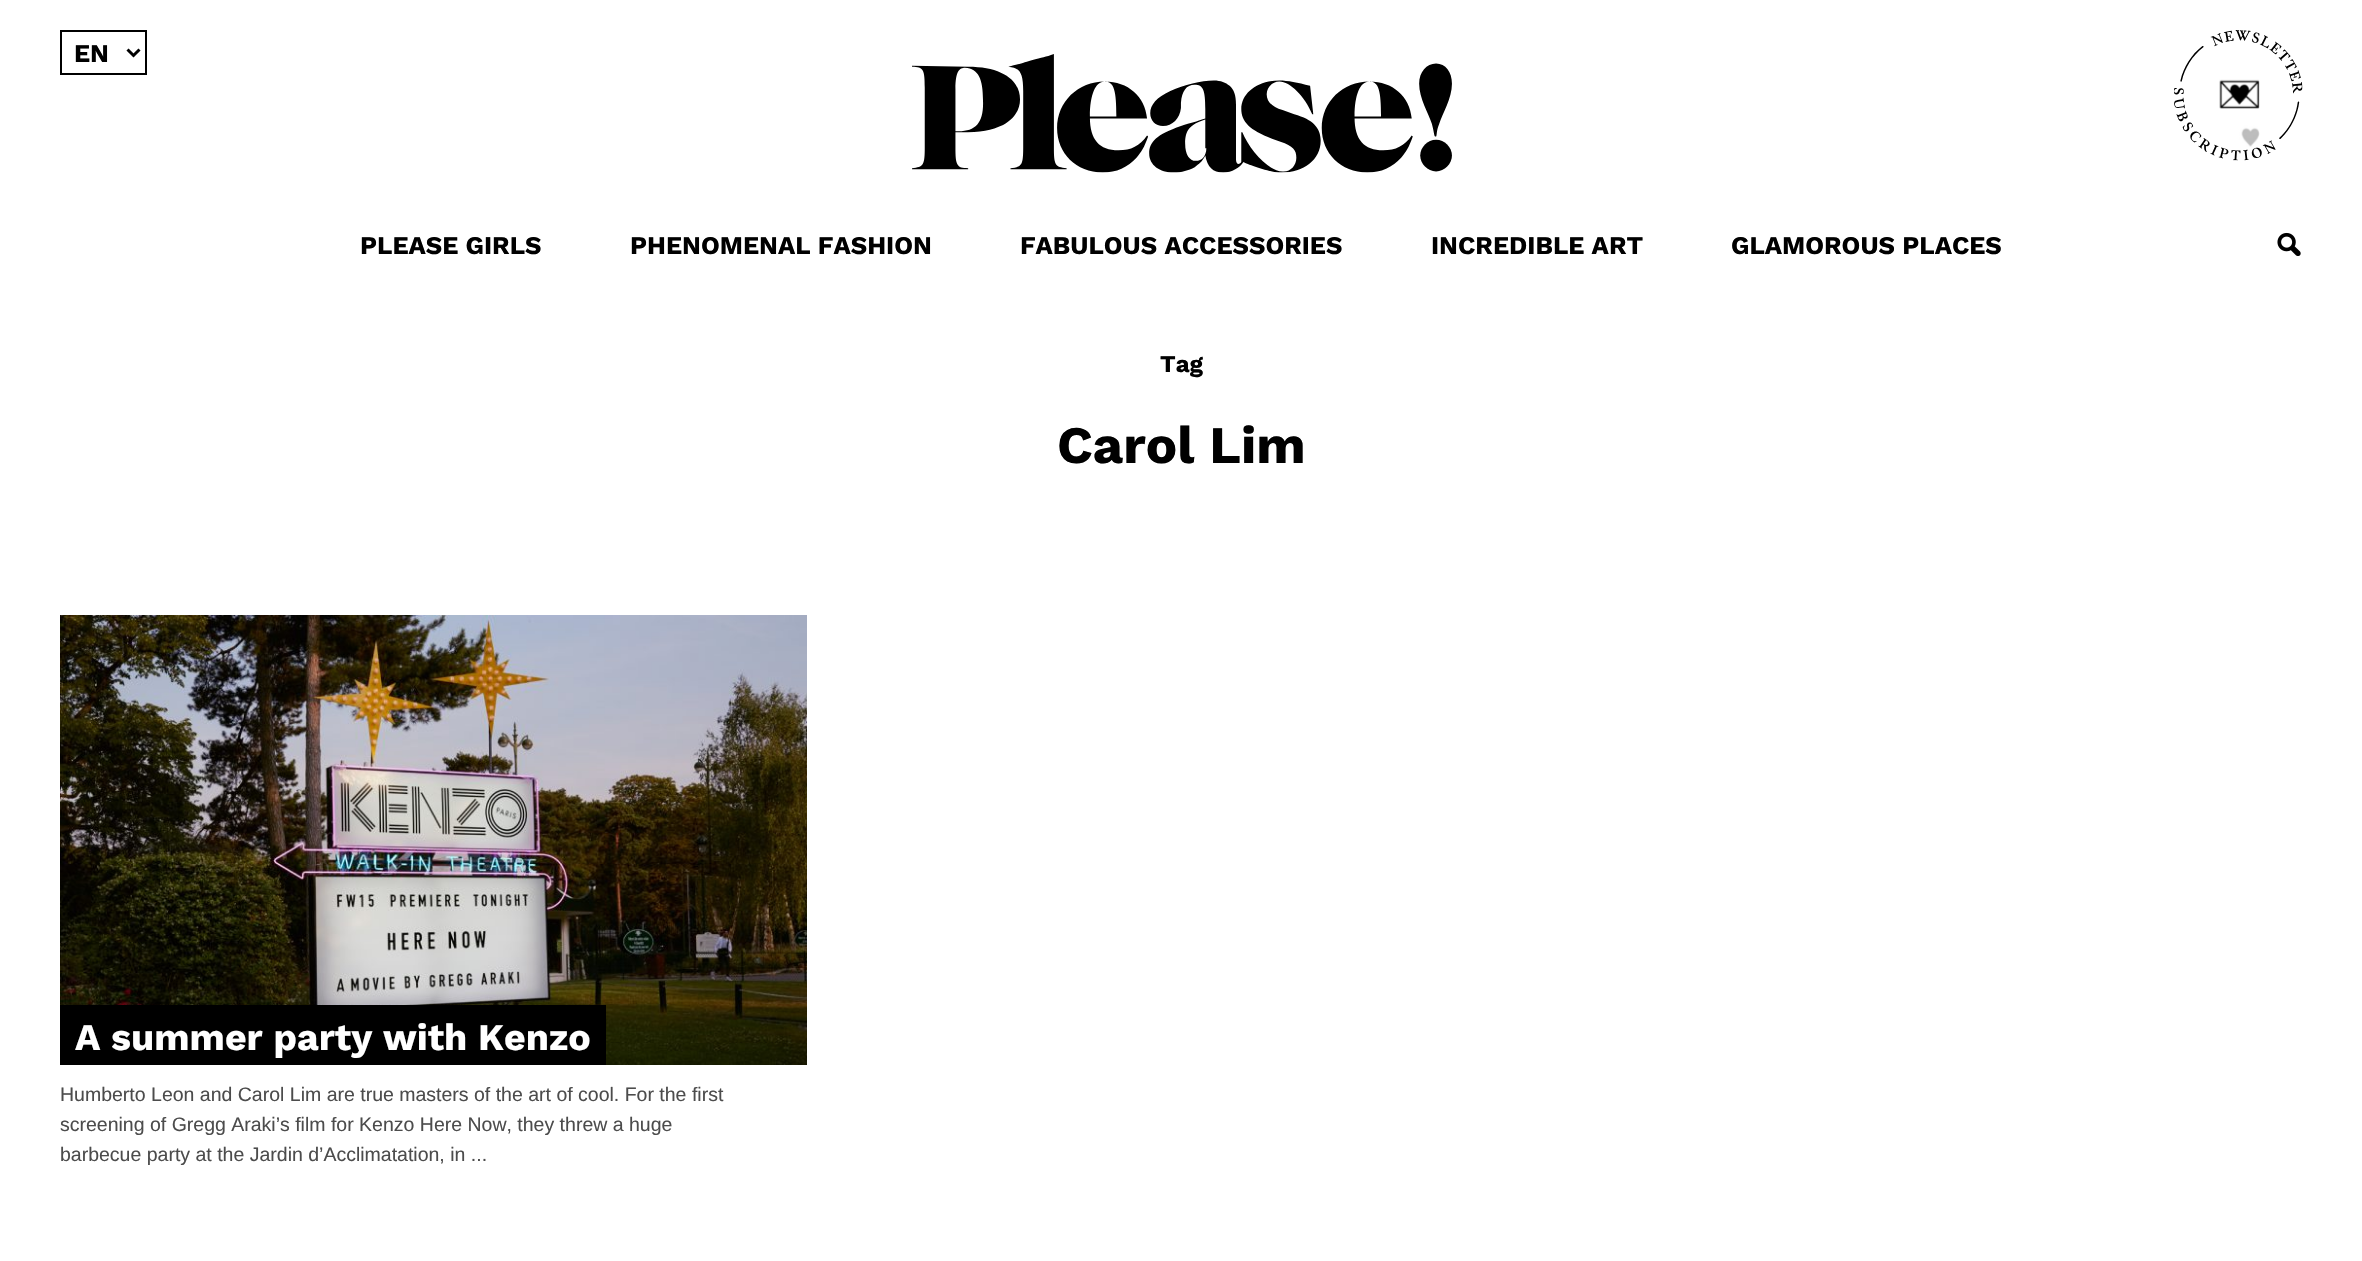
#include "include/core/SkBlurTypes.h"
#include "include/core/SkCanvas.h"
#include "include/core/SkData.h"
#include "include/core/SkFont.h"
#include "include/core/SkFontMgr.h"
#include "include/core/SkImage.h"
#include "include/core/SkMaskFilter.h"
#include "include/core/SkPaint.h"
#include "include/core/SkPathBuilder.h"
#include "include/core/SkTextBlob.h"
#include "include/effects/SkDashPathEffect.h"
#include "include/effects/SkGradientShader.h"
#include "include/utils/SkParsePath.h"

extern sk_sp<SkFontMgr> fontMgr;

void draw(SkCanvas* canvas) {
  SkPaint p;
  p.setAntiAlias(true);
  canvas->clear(SK_ColorWHITE);
  p.setStyle(SkPaint::kStroke_Style);
  p.setStrokeWidth(2);
  p.setColor(SK_ColorBLACK);
  canvas->drawRect(SkRect::MakeLTRB(61, 31, 146, 74), p);
  p.setStrokeWidth(3);
  canvas->drawPath(SkPathBuilder().moveTo(127.5f, 49.5f).lineTo(133.5f, 55.5f).lineTo(139.5f, 49.5f).detach(), p);
  canvas->drawImageRect(SkImages::DeferredFromEncodedData(SkData::MakeFromFileName("images/1.png")), SkRect::MakeLTRB(912, 54, 1452, 173), SkSamplingOptions());
  canvas->drawImageRect(SkImages::DeferredFromEncodedData(SkData::MakeFromFileName("images/3.png")), SkRect::MakeLTRB(2219, 79, 2260, 147), SkSamplingOptions());
  canvas->drawImageRect(SkImages::DeferredFromEncodedData(SkData::MakeFromFileName("images/2.png")), SkRect::MakeLTRB(2174, 30, 2303, 161), SkSamplingOptions());
  canvas->drawImageRect(SkImages::DeferredFromEncodedData(SkData::MakeFromFileName("images/4.png")), SkRect::MakeLTRB(2277, 232, 2301, 256), SkSamplingOptions());
  canvas->drawImageRect(SkImages::DeferredFromEncodedData(SkData::MakeFromFileName("images/5.png")), SkRect::MakeLTRB(60, 615, 807, 1065), SkSamplingOptions());
  p.setStyle(SkPaint::kFill_Style);
  canvas->drawRect(SkRect::MakeLTRB(60, 1005, 606, 1065), p);
  SkFont font1(fontMgr->matchFamilyStyle("Work Sans", SkFontStyle::Bold()), 25.5f);
  font1.setSubpixel(true);
  canvas->drawString("EN", 74, 62, font1, p);
  canvas->drawString("PLEASE GIRLS", 360, 254, font1, p);
  canvas->drawString("PHENOMENAL FASHION", 630, 254, font1, p);
  canvas->drawString("FABULOUS ACCESSORIES", 1020, 254, font1, p);
  canvas->drawString("INCREDIBLE ART", 1431, 254, font1, p);
  canvas->drawString("GLAMOROUS PLACES", 1731, 254, font1, p);
  SkFont font2(fontMgr->matchFamilyStyle("Work Sans", SkFontStyle::Bold()), 24);
  font2.setSubpixel(true);
  canvas->drawString("Tag", 1160, 372, font2, p);
  SkFont font3(fontMgr->matchFamilyStyle("Work Sans", SkFontStyle::Bold()), 52.5f);
  font3.setSubpixel(true);
  canvas->drawString("Carol Lim", 1057, 463, font3, p);
  SkFont font4(fontMgr->matchFamilyStyle("Work Sans", SkFontStyle::Bold()), 37.5f);
  font4.setSubpixel(true);
  p.setColor(SK_ColorWHITE);
  canvas->drawString("A summer party with Kenzo", 75, 1050, font4, p);
  SkFont font5(fontMgr->matchFamilyStyle("Liberation Sans", SkFontStyle::Normal()), 19.5f);
  font5.setSubpixel(true);
  p.setColor(SkColorSetRGB(76, 76, 76));
  canvas->drawString("Humberto Leon and Carol Lim are true masters of the art of cool. For the first", 60, 1101, font5, p);
  canvas->drawString("screening of Gregg Araki’s film for Kenzo Here Now, they threw a huge", 60, 1131, font5, p);
  canvas->drawString("barbecue party at the Jardin d’Acclimatation, in ...", 60, 1161, font5, p);
}
